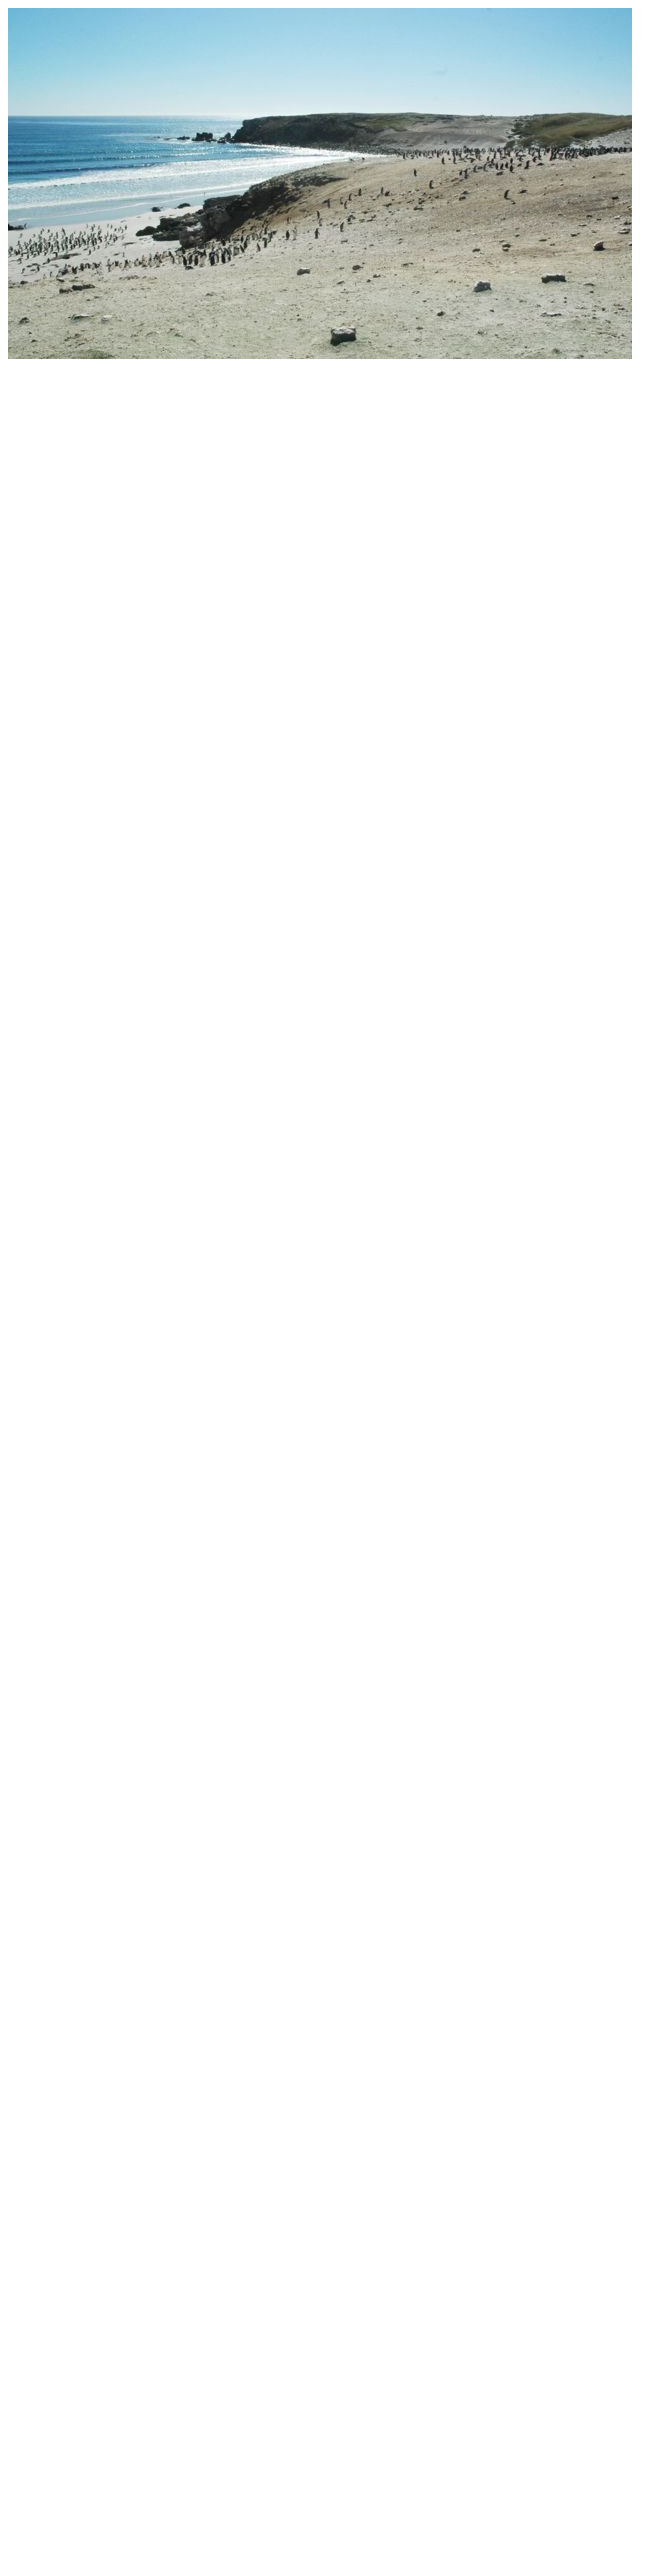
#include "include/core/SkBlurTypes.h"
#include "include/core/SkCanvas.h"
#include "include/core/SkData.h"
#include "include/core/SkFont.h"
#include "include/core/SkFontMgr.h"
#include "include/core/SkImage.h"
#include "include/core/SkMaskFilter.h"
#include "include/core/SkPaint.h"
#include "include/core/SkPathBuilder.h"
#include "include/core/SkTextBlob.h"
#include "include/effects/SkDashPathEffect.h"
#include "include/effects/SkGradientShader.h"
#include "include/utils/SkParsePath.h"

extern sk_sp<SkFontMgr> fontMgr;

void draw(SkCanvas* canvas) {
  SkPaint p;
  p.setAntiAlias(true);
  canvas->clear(SK_ColorWHITE);
  canvas->drawImageRect(SkImages::DeferredFromEncodedData(SkData::MakeFromFileName("images/1.png")), SkRect::MakeLTRB(8, 8, 632, 359), SkSamplingOptions());
}
